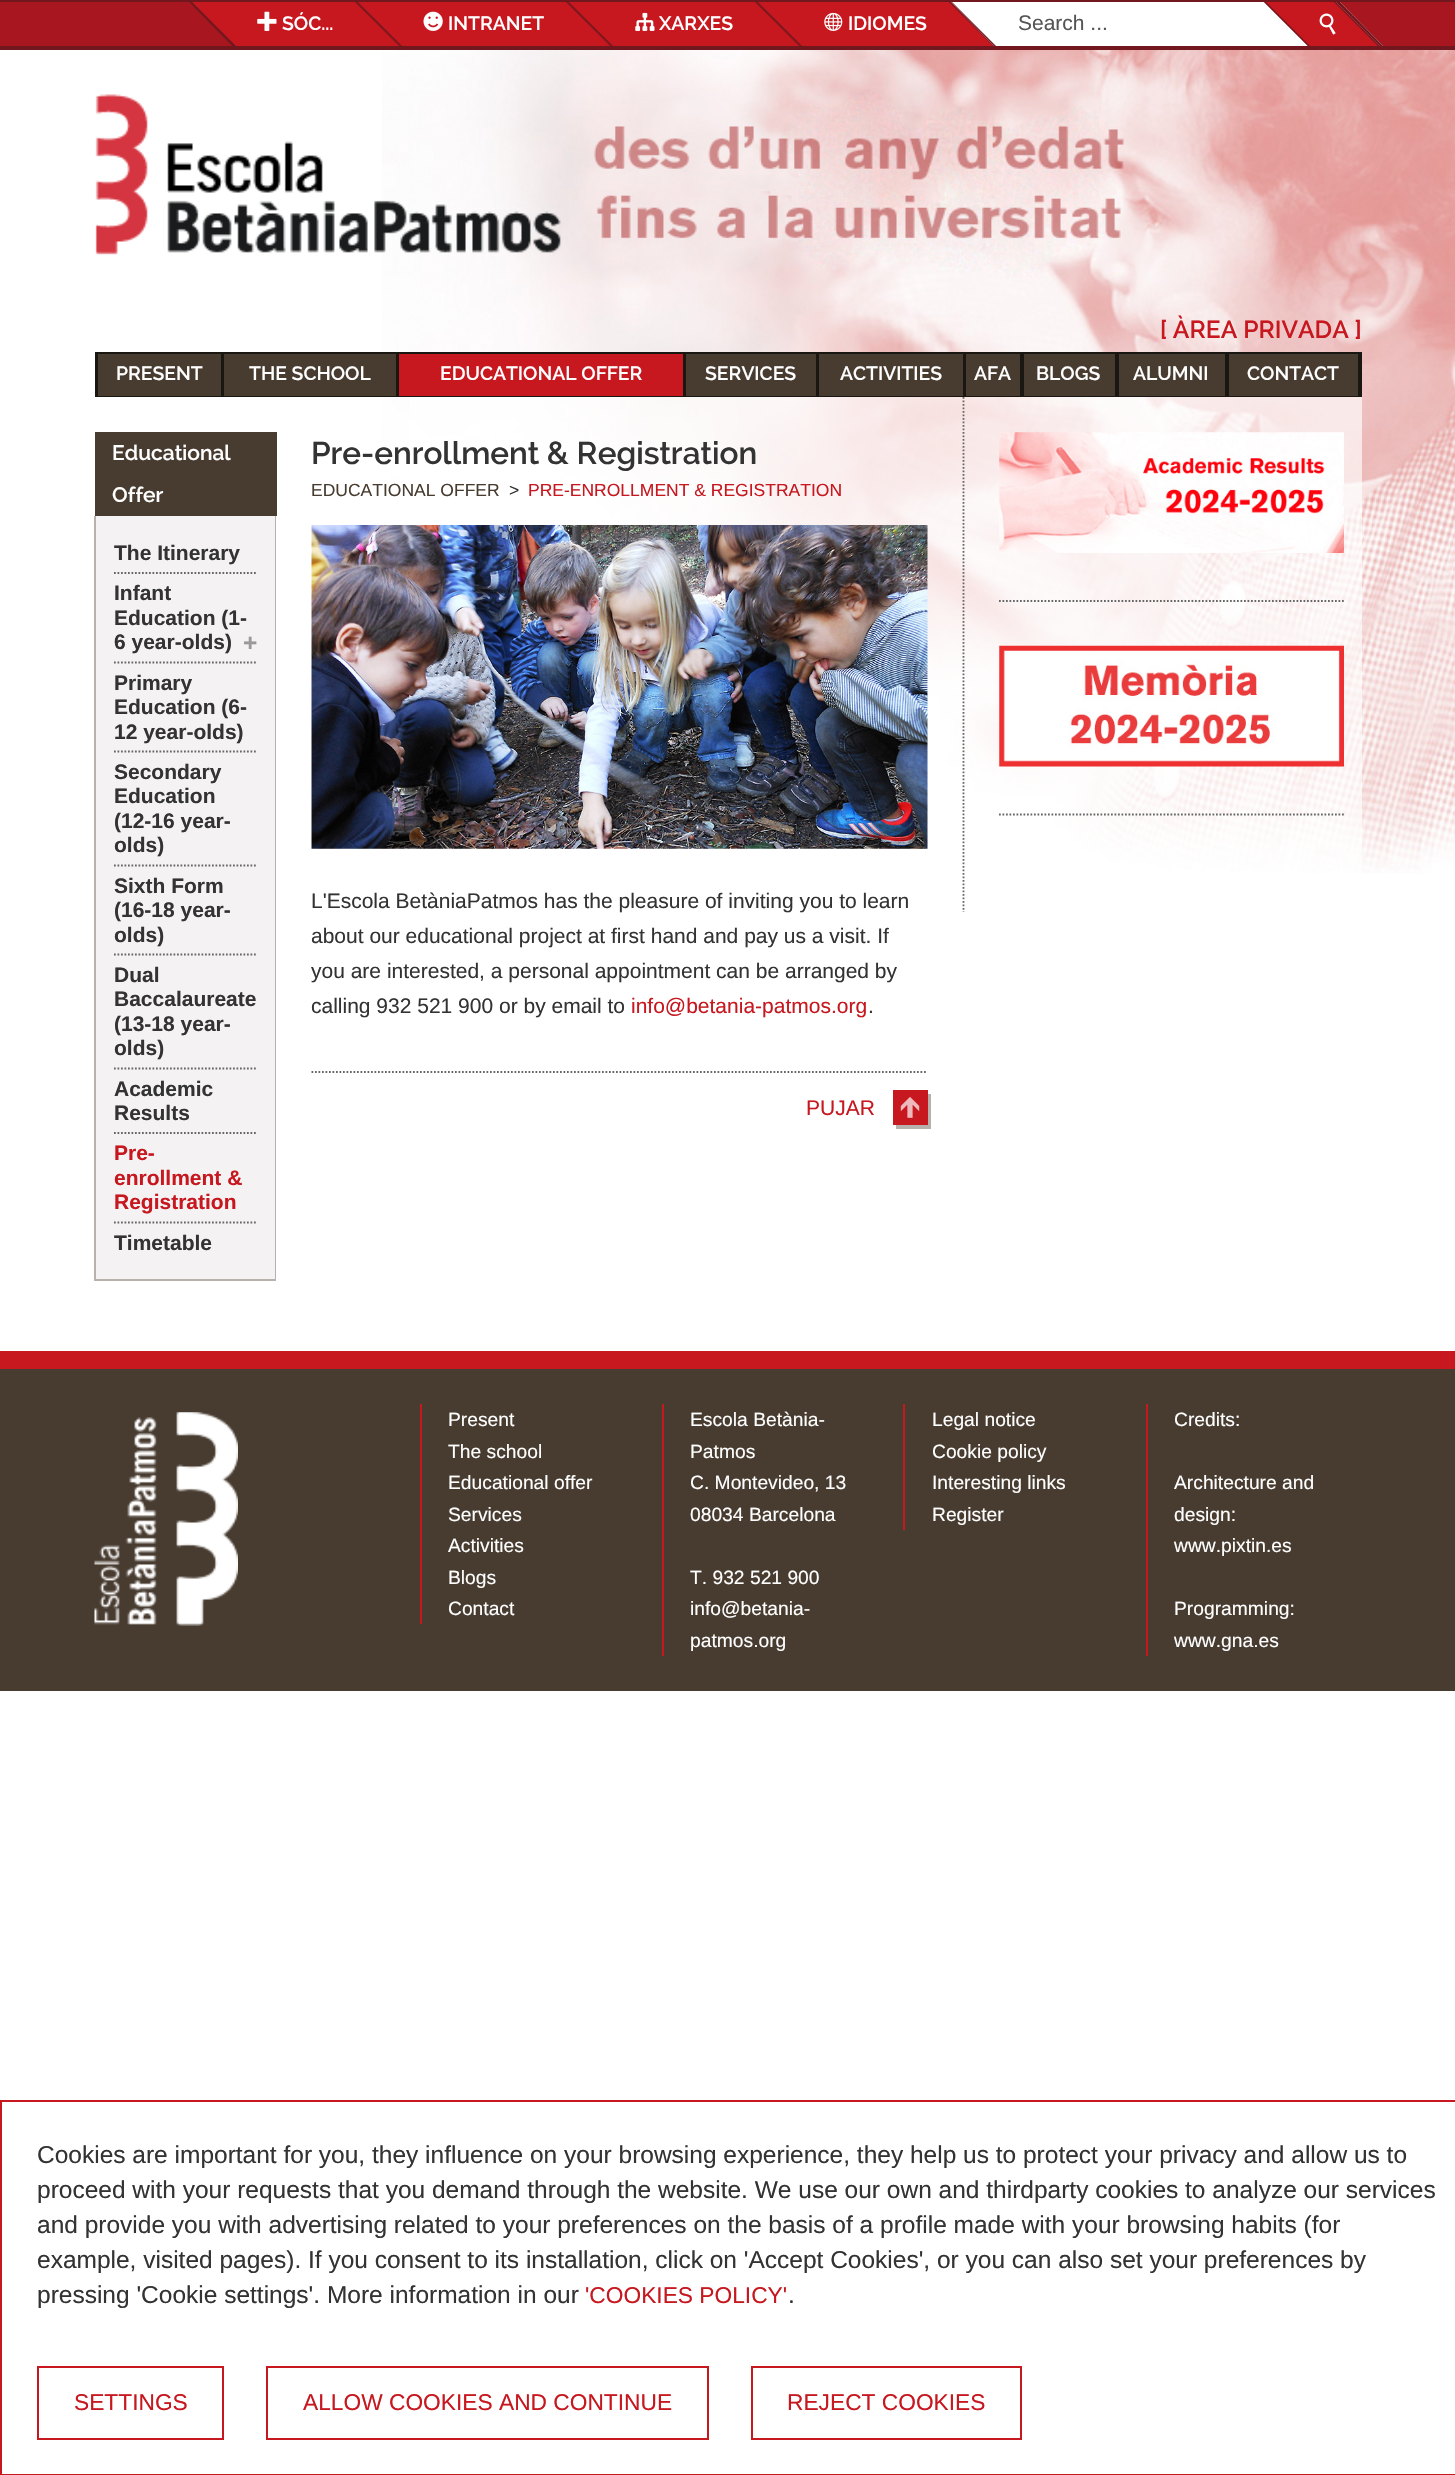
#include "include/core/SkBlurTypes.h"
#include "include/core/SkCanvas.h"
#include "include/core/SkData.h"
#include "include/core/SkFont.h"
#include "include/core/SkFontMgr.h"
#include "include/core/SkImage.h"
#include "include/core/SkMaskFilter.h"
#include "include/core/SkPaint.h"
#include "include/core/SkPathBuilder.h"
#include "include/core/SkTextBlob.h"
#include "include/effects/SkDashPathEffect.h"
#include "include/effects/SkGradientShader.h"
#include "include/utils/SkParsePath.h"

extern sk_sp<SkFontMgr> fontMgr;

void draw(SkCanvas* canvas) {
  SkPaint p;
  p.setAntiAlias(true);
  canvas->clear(SK_ColorWHITE);
  p.setColor(SkColorSetRGB(168, 23, 31));
  canvas->drawRect(SkRect::MakeLTRB(0, 2, 1455, 46), p);
  p.setColor(SkColorSetRGB(115, 23, 31));
  canvas->drawRect(SkRect::MakeLTRB(0, 0, 1455, 2), p);
  canvas->drawRect(SkRect::MakeLTRB(0, 46, 1455, 50), p);
  p.setColor(SkColorSetRGB(199, 23, 31));
  canvas->drawPath(SkPathBuilder().moveTo(189, 2).lineTo(357, 2).lineTo(400, 46).lineTo(232, 46).close().detach(), p);
  p.setColor(SkColorSetRGB(115, 23, 31));
  canvas->drawPath(SkPathBuilder().moveTo(355, 2).lineTo(357, 2).lineTo(400, 46).lineTo(399, 46).close().detach(), p);
  canvas->drawPath(SkPathBuilder().moveTo(189, 2).lineTo(192, 2).lineTo(236, 46).lineTo(232, 46).close().detach(), p);
  canvas->drawImageRect(SkImages::DeferredFromEncodedData(SkData::MakeFromFileName("images/1.png")), SkRect::MakeLTRB(257, 11, 277, 31), SkSamplingOptions());
  p.setColor(SkColorSetRGB(199, 23, 31));
  canvas->drawPath(SkPathBuilder().moveTo(357, 2).lineTo(568, 2).lineTo(611, 46).lineTo(400, 46).close().detach(), p);
  p.setColor(SkColorSetRGB(115, 23, 31));
  canvas->drawPath(SkPathBuilder().moveTo(566, 2).lineTo(568, 2).lineTo(611, 46).lineTo(610, 46).close().detach(), p);
  canvas->drawPath(SkPathBuilder().moveTo(357, 2).lineTo(358, 2).lineTo(402, 46).lineTo(400, 46).close().detach(), p);
  canvas->drawImageRect(SkImages::DeferredFromEncodedData(SkData::MakeFromFileName("images/2.png")), SkRect::MakeLTRB(423, 11, 443, 31), SkSamplingOptions());
  p.setColor(SkColorSetRGB(199, 23, 31));
  canvas->drawPath(SkPathBuilder().moveTo(568, 2).lineTo(757, 2).lineTo(800, 46).lineTo(611, 46).close().detach(), p);
  p.setColor(SkColorSetRGB(115, 23, 31));
  canvas->drawPath(SkPathBuilder().moveTo(755, 2).lineTo(757, 2).lineTo(800, 46).lineTo(799, 46).close().detach(), p);
  canvas->drawPath(SkPathBuilder().moveTo(568, 2).lineTo(569, 2).lineTo(613, 46).lineTo(611, 46).close().detach(), p);
  canvas->drawImageRect(SkImages::DeferredFromEncodedData(SkData::MakeFromFileName("images/3.png")), SkRect::MakeLTRB(635, 12, 655, 31), SkSamplingOptions());
  p.setColor(SkColorSetRGB(199, 23, 31));
  canvas->drawPath(SkPathBuilder().moveTo(757, 2).lineTo(951, 2).lineTo(994, 46).lineTo(800, 46).close().detach(), p);
  p.setColor(SkColorSetRGB(115, 23, 31));
  canvas->drawPath(SkPathBuilder().moveTo(949, 2).lineTo(951, 2).lineTo(994, 46).lineTo(993, 46).close().detach(), p);
  canvas->drawPath(SkPathBuilder().moveTo(757, 2).lineTo(758, 2).lineTo(802, 46).lineTo(800, 46).close().detach(), p);
  canvas->drawImageRect(SkImages::DeferredFromEncodedData(SkData::MakeFromFileName("images/4.png")), SkRect::MakeLTRB(824, 12, 843, 31), SkSamplingOptions());
  p.setColor(SK_ColorWHITE);
  canvas->drawPath(SkPathBuilder().moveTo(951, 2).lineTo(1340, 2).lineTo(1383, 46).lineTo(994, 46).close().detach(), p);
  p.setColor(SkColorSetRGB(115, 23, 31));
  canvas->drawPath(SkPathBuilder().moveTo(1336, 2).lineTo(1340, 2).lineTo(1383, 46).lineTo(1380, 46).close().detach(), p);
  canvas->drawPath(SkPathBuilder().moveTo(951, 2).lineTo(952, 2).lineTo(996, 46).lineTo(994, 46).close().detach(), p);
  p.setColor(SkColorSetRGB(199, 23, 31));
  canvas->drawPath(SkPathBuilder().moveTo(1264, 2).lineTo(1336, 2).lineTo(1380, 46).lineTo(1308, 46).close().detach(), p);
  p.setColor(SkColorSetRGB(115, 23, 31));
  canvas->drawPath(SkPathBuilder().moveTo(1334, 2).lineTo(1336, 2).lineTo(1380, 46).lineTo(1378, 46).close().detach(), p);
  canvas->drawPath(SkPathBuilder().moveTo(1264, 2).lineTo(1266, 2).lineTo(1310, 46).lineTo(1308, 46).close().detach(), p);
  canvas->drawImageRect(SkImages::DeferredFromEncodedData(SkData::MakeFromFileName("images/5.png")), SkRect::MakeLTRB(1319, 13, 1336, 35), SkSamplingOptions());
  canvas->drawImageRect(SkImages::DeferredFromEncodedData(SkData::MakeFromFileName("images/7.png")), SkRect::MakeLTRB(382, 50, 1455, 874), SkSamplingOptions());
  canvas->drawImageRect(SkImages::DeferredFromEncodedData(SkData::MakeFromFileName("images/6.png")), SkRect::MakeLTRB(95, 94, 561, 255), SkSamplingOptions());
  p.setStyle(SkPaint::kStroke_Style);
  p.setStrokeWidth(2);
  p.setColor(SkColorSetRGB(26, 22, 18));
  canvas->drawRect(SkRect::MakeLTRB(96, 353, 1361, 396), p);
  p.setStyle(SkPaint::kFill_Style);
  p.setColor(SkColorSetRGB(72, 60, 49));
  canvas->drawRect(SkRect::MakeLTRB(98, 354, 221, 396), p);
  p.setColor(SkColorSetRGB(26, 22, 18));
  canvas->drawRect(SkRect::MakeLTRB(221, 354, 224, 396), p);
  canvas->drawRect(SkRect::MakeLTRB(97, 354, 98, 396), p);
  p.setColor(SkColorSetRGB(72, 60, 49));
  canvas->drawRect(SkRect::MakeLTRB(224, 354, 396, 396), p);
  p.setColor(SkColorSetRGB(26, 22, 18));
  canvas->drawRect(SkRect::MakeLTRB(396, 354, 399, 396), p);
  p.setColor(SkColorSetRGB(199, 23, 31));
  canvas->drawRect(SkRect::MakeLTRB(399, 354, 683, 396), p);
  p.setColor(SkColorSetRGB(26, 22, 18));
  canvas->drawRect(SkRect::MakeLTRB(683, 354, 686, 396), p);
  p.setColor(SkColorSetRGB(72, 60, 49));
  canvas->drawRect(SkRect::MakeLTRB(686, 354, 816, 396), p);
  p.setColor(SkColorSetRGB(26, 22, 18));
  canvas->drawRect(SkRect::MakeLTRB(816, 354, 819, 396), p);
  p.setColor(SkColorSetRGB(72, 60, 49));
  canvas->drawRect(SkRect::MakeLTRB(819, 354, 963, 396), p);
  p.setColor(SkColorSetRGB(26, 22, 18));
  canvas->drawRect(SkRect::MakeLTRB(963, 354, 966, 396), p);
  p.setColor(SkColorSetRGB(72, 60, 49));
  canvas->drawRect(SkRect::MakeLTRB(966, 354, 1020, 396), p);
  p.setColor(SkColorSetRGB(26, 22, 18));
  canvas->drawRect(SkRect::MakeLTRB(1020, 354, 1024, 396), p);
  p.setColor(SkColorSetRGB(72, 60, 49));
  canvas->drawRect(SkRect::MakeLTRB(1024, 354, 1115, 396), p);
  p.setColor(SkColorSetRGB(26, 22, 18));
  canvas->drawRect(SkRect::MakeLTRB(1115, 354, 1119, 396), p);
  p.setColor(SkColorSetRGB(72, 60, 49));
  canvas->drawRect(SkRect::MakeLTRB(1119, 354, 1225, 396), p);
  p.setColor(SkColorSetRGB(26, 22, 18));
  canvas->drawRect(SkRect::MakeLTRB(1225, 354, 1229, 396), p);
  p.setColor(SkColorSetRGB(72, 60, 49));
  canvas->drawRect(SkRect::MakeLTRB(1229, 354, 1358, 396), p);
  p.setColor(SkColorSetRGB(26, 22, 18));
  canvas->drawRect(SkRect::MakeLTRB(1358, 354, 1360, 396), p);
  p.setColor(SkColorSetARGB(166, 255, 255, 255));
  canvas->drawRect(SkRect::MakeLTRB(409, 397, 1362, 874), p);
  p.setColor(SkColorSetRGB(72, 60, 49));
  canvas->drawRect(SkRect::MakeLTRB(95, 432, 277, 516), p);
  p.setColor(SkColorSetRGB(244, 242, 242));
  canvas->drawRect(SkRect::MakeLTRB(96, 516, 275, 1279), p);
  p.setColor(SkColorSetRGB(182, 177, 173));
  canvas->drawPath(SkPathBuilder().moveTo(276, 516).lineTo(276, 1281).lineTo(275, 1279).lineTo(275, 516).close().detach(), p);
  p.setColor(SkColorSetARGB(102, 72, 60, 49));
  canvas->drawPath(SkPathBuilder().moveTo(276, 1281).lineTo(94, 1281).lineTo(96, 1279).lineTo(275, 1279).close().detach(), p);
  canvas->drawPath(SkPathBuilder().moveTo(94, 1281).lineTo(94, 516).lineTo(96, 516).lineTo(96, 1279).close().detach(), p);
  p.setStyle(SkPaint::kStroke_Style);
  p.setStrokeWidth(1.8f);
  p.setColor(SkColorSetRGB(102, 102, 102));
  p.setPathEffect(SkDashPathEffect::Make({{1.75f, 1.75f}}, 0));
  canvas->drawPath(SkPathBuilder().moveTo(114, 573).lineTo(257, 573).detach(), p);
  p.setPathEffect(nullptr);
  p.setPathEffect(SkDashPathEffect::Make({{1.75f, 1.75f}}, 0));
  canvas->drawPath(SkPathBuilder().moveTo(114, 662.5f).lineTo(257, 662.5f).detach(), p);
  p.setPathEffect(nullptr);
  p.setPathEffect(SkDashPathEffect::Make({{1.75f, 1.75f}}, 0));
  canvas->drawPath(SkPathBuilder().moveTo(114, 751.5f).lineTo(257, 751.5f).detach(), p);
  p.setPathEffect(nullptr);
  p.setPathEffect(SkDashPathEffect::Make({{1.75f, 1.75f}}, 0));
  canvas->drawPath(SkPathBuilder().moveTo(114, 865.5f).lineTo(257, 865.5f).detach(), p);
  p.setPathEffect(nullptr);
  p.setPathEffect(SkDashPathEffect::Make({{1.75f, 1.75f}}, 0));
  canvas->drawPath(SkPathBuilder().moveTo(114, 954.5f).lineTo(257, 954.5f).detach(), p);
  p.setPathEffect(nullptr);
  p.setPathEffect(SkDashPathEffect::Make({{1.75f, 1.75f}}, 0));
  canvas->drawPath(SkPathBuilder().moveTo(114, 1068.5f).lineTo(257, 1068.5f).detach(), p);
  p.setPathEffect(nullptr);
  p.setPathEffect(SkDashPathEffect::Make({{1.75f, 1.75f}}, 0));
  canvas->drawPath(SkPathBuilder().moveTo(114, 1133).lineTo(257, 1133).detach(), p);
  p.setPathEffect(nullptr);
  p.setPathEffect(SkDashPathEffect::Make({{1.75f, 1.75f}}, 0));
  canvas->drawPath(SkPathBuilder().moveTo(114, 1222.5f).lineTo(257, 1222.5f).detach(), p);
  p.setPathEffect(nullptr);
  canvas->drawImageRect(SkImages::DeferredFromEncodedData(SkData::MakeFromFileName("images/8.png")), SkRect::MakeLTRB(311, 525, 928, 849), SkSamplingOptions());
  p.setPathEffect(SkDashPathEffect::Make({{1.75f, 1.75f}}, 0));
  canvas->drawPath(SkPathBuilder().moveTo(311.5f, 1072).lineTo(927.5f, 1072).detach(), p);
  p.setPathEffect(nullptr);
  p.setStyle(SkPaint::kFill_Style);
  p.setColor(SkColorSetRGB(182, 177, 173));
  canvas->drawPath(SkPathBuilder().moveTo(896, 1125).lineTo(896, 1129).lineTo(931, 1129).lineTo(931, 1094).lineTo(927.5f, 1094).lineTo(927.5f, 1125).close().detach(), p);
  p.setColor(SkColorSetRGB(199, 23, 31));
  canvas->drawRect(SkRect::MakeLTRB(893, 1090, 928, 1125), p);
  canvas->drawImageRect(SkImages::DeferredFromEncodedData(SkData::MakeFromFileName("images/9.png")), SkRect::MakeLTRB(900, 1097, 920, 1118), SkSamplingOptions());
  p.setStyle(SkPaint::kStroke_Style);
  p.setColor(SkColorSetRGB(102, 102, 102));
  p.setPathEffect(SkDashPathEffect::Make({{1.75f, 1.75f}}, 0));
  canvas->drawPath(SkPathBuilder().moveTo(963.5f, 397).lineTo(963.5f, 912).detach(), p);
  p.setPathEffect(nullptr);
  canvas->drawImageRect(SkImages::DeferredFromEncodedData(SkData::MakeFromFileName("images/10.png")), SkRect::MakeLTRB(999, 432, 1344, 553), SkSamplingOptions());
  p.setPathEffect(SkDashPathEffect::Make({{1.75f, 1.75f}}, 0));
  canvas->drawPath(SkPathBuilder().moveTo(999, 601).lineTo(1344, 601).detach(), p);
  p.setPathEffect(nullptr);
  canvas->drawImageRect(SkImages::DeferredFromEncodedData(SkData::MakeFromFileName("images/11.png")), SkRect::MakeLTRB(999, 645, 1344, 767), SkSamplingOptions());
  p.setPathEffect(SkDashPathEffect::Make({{1.75f, 1.75f}}, 0));
  canvas->drawPath(SkPathBuilder().moveTo(999, 814.5f).lineTo(1344, 814.5f).detach(), p);
  p.setPathEffect(nullptr);
  p.setStyle(SkPaint::kFill_Style);
  p.setColor(SkColorSetRGB(72, 60, 49));
  canvas->drawRect(SkRect::MakeLTRB(0, 1369, 1455, 1691), p);
  p.setColor(SkColorSetRGB(199, 23, 31));
  canvas->drawRect(SkRect::MakeLTRB(0, 1351, 1455, 1369), p);
  canvas->drawImageRect(SkImages::DeferredFromEncodedData(SkData::MakeFromFileName("images/12.png")), SkRect::MakeLTRB(94, 1412, 238, 1626), SkSamplingOptions());
  canvas->drawRect(SkRect::MakeLTRB(420, 1404, 422, 1624), p);
  canvas->drawRect(SkRect::MakeLTRB(662, 1404, 664, 1656), p);
  canvas->drawRect(SkRect::MakeLTRB(903, 1404, 905, 1530), p);
  canvas->drawRect(SkRect::MakeLTRB(1146, 1404, 1148, 1656), p);
  p.setStyle(SkPaint::kStroke_Style);
  p.setStrokeWidth(2);
  canvas->drawRect(SkRect::MakeLTRB(1, 2101, 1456, 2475), p);
  canvas->drawRect(SkRect::MakeLTRB(38, 2367, 223, 2439), p);
  canvas->drawRect(SkRect::MakeLTRB(267, 2367, 708, 2439), p);
  canvas->drawRect(SkRect::MakeLTRB(752, 2367, 1021, 2439), p);
  SkFont font1(fontMgr->matchFamilyStyle("Raleway", SkFontStyle(600, SkFontStyle::kNormal_Width, SkFontStyle::kUpright_Slant)), 19.25f);
  font1.setSubpixel(true);
  p.setStyle(SkPaint::kFill_Style);
  p.setColor(SK_ColorWHITE);
  canvas->drawString("SÓC...", 282, 30, font1, p);
  canvas->drawString("INTRANET", 448, 30, font1, p);
  canvas->drawString("XARXES", 659, 30, font1, p);
  canvas->drawString("IDIOMES", 848, 30, font1, p);
  SkFont font2(fontMgr->matchFamilyStyle("Liberation Sans", SkFontStyle::Normal()), 21);
  font2.setSubpixel(true);
  p.setColor(SkColorSetRGB(85, 85, 85));
  canvas->drawString("Search ...", 1018, 30, font2, p);
  SkFont font3(fontMgr->matchFamilyStyle("Raleway", SkFontStyle(600, SkFontStyle::kNormal_Width, SkFontStyle::kUpright_Slant)), 24.5f);
  font3.setSubpixel(true);
  p.setColor(SkColorSetRGB(199, 23, 31));
  canvas->drawString("[ ÀREA PRIVADA ]", 1160, 338, font3, p);
  p.setColor(SK_ColorWHITE);
  canvas->drawString("PRESENT", 116, 380, font1, p);
  canvas->drawString("THE SCHOOL", 249, 380, font1, p);
  canvas->drawString("EDUCATIONAL OFFER", 440, 380, font1, p);
  canvas->drawString("SERVICES", 705, 380, font1, p);
  canvas->drawString("ACTIVITIES", 840, 380, font1, p);
  canvas->drawString("AFA", 974, 380, font1, p);
  canvas->drawString("BLOGS", 1036, 380, font1, p);
  canvas->drawString("ALUMNI", 1133, 380, font1, p);
  canvas->drawString("CONTACT", 1247, 380, font1, p);
  SkFont font4(fontMgr->matchFamilyStyle("Raleway", SkFontStyle(600, SkFontStyle::kNormal_Width, SkFontStyle::kUpright_Slant)), 21);
  font4.setSubpixel(true);
  canvas->drawString("Educational", 112, 460, font4, p);
  canvas->drawString("Offer", 112, 502, font4, p);
  SkFont font5(fontMgr->matchFamilyStyle("Liberation Sans", SkFontStyle::Bold()), 21);
  font5.setSubpixel(true);
  p.setColor(SkColorSetRGB(51, 51, 51));
  canvas->drawString("The Itinerary", 114, 560, font5, p);
  canvas->drawString("Infant", 114, 600, font5, p);
  canvas->drawString("Education (1-", 114, 625, font5, p);
  canvas->drawString("6 year-olds)", 114, 649, font5, p);
  SkFont font6(fontMgr->matchFamilyStyle("Liberation Sans", SkFontStyle::Bold()), 24.5f);
  font6.setSubpixel(true);
  p.setColor(SkColorSetRGB(153, 153, 153));
  canvas->drawString("+", 243, 651, font6, p);
  p.setColor(SkColorSetRGB(51, 51, 51));
  canvas->drawString("Primary", 114, 690, font5, p);
  canvas->drawString("Education (6-", 114, 714, font5, p);
  canvas->drawString("12 year-olds)", 114, 739, font5, p);
  canvas->drawString("Secondary", 114, 779, font5, p);
  canvas->drawString("Education", 114, 803, font5, p);
  canvas->drawString("(12-16 year-", 114, 828, font5, p);
  canvas->drawString("olds)", 114, 852, font5, p);
  canvas->drawString("Sixth Form", 114, 893, font5, p);
  canvas->drawString("(16-18 year-", 114, 917, font5, p);
  canvas->drawString("olds)", 114, 942, font5, p);
  canvas->drawString("Dual", 114, 982, font5, p);
  canvas->drawString("Baccalaureate", 114, 1006, font5, p);
  canvas->drawString("(13-18 year-", 114, 1031, font5, p);
  canvas->drawString("olds)", 114, 1055, font5, p);
  canvas->drawString("Academic", 114, 1096, font5, p);
  canvas->drawString("Results", 114, 1120, font5, p);
  p.setColor(SkColorSetRGB(199, 23, 31));
  canvas->drawString("Pre-", 114, 1160, font5, p);
  canvas->drawString("enrollment &", 114, 1185, font5, p);
  canvas->drawString("Registration", 114, 1209, font5, p);
  p.setColor(SkColorSetRGB(51, 51, 51));
  canvas->drawString("Timetable", 114, 1250, font5, p);
  SkFont font7(fontMgr->matchFamilyStyle("Raleway", SkFontStyle(600, SkFontStyle::kNormal_Width, SkFontStyle::kUpright_Slant)), 31.5f);
  font7.setSubpixel(true);
  canvas->drawString("Pre-enrollment & Registration", 311, 464, font7, p);
  SkFont font8(fontMgr->matchFamilyStyle("Liberation Sans", SkFontStyle::Normal()), 17.5f);
  font8.setSubpixel(true);
  p.setColor(SkColorSetRGB(72, 60, 49));
  canvas->drawString("EDUCATIONAL OFFER", 311, 496, font8, p);
  p.setColor(SkColorSetRGB(51, 51, 51));
  canvas->drawString(">", 509, 496, font8, p);
  p.setColor(SkColorSetRGB(199, 23, 31));
  canvas->drawString("PRE-ENROLLMENT & REGISTRATION", 528, 496, font8, p);
  p.setColor(SkColorSetRGB(51, 51, 51));
  canvas->drawString("L'Escola BetàniaPatmos has the pleasure of inviting you to learn", 311, 908, font2, p);
  canvas->drawString("about our educational project at first hand and pay us a visit. If", 311, 943, font2, p);
  canvas->drawString("you are interested, a personal appointment can be arranged by", 311, 978, font2, p);
  canvas->drawString("calling 932 521 900 or by email to", 311, 1013, font2, p);
  p.setColor(SkColorSetRGB(199, 23, 31));
  canvas->drawString("info@betania-patmos.org", 631, 1013, font2, p);
  p.setColor(SkColorSetRGB(51, 51, 51));
  canvas->drawString(".", 868, 1013, font2, p);
  p.setColor(SkColorSetRGB(199, 23, 31));
  canvas->drawString("PUJAR", 806, 1115, font2, p);
  SkFont font9(fontMgr->matchFamilyStyle("Liberation Sans", SkFontStyle::Normal()), 19.25f);
  font9.setSubpixel(true);
  p.setColor(SK_ColorWHITE);
  canvas->drawString("Present", 448, 1426, font9, p);
  canvas->drawString("The school", 448, 1458, font9, p);
  canvas->drawString("Educational offer", 448, 1489, font9, p);
  canvas->drawString("Services", 448, 1521, font9, p);
  canvas->drawString("Activities", 448, 1552, font9, p);
  canvas->drawString("Blogs", 448, 1584, font9, p);
  canvas->drawString("Contact", 448, 1615, font9, p);
  canvas->drawString("Escola Betània-", 690, 1426, font9, p);
  canvas->drawString("Patmos", 690, 1458, font9, p);
  canvas->drawString("C. Montevideo, 13", 690, 1489, font9, p);
  canvas->drawString("08034 Barcelona", 690, 1521, font9, p);
  canvas->drawString("T. 932 521 900", 690, 1584, font9, p);
  canvas->drawString("info@betania-", 690, 1615, font9, p);
  canvas->drawString("patmos.org", 690, 1647, font9, p);
  canvas->drawString("Legal notice", 932, 1426, font9, p);
  canvas->drawString("Cookie policy", 932, 1458, font9, p);
  canvas->drawString("Interesting links", 932, 1489, font9, p);
  canvas->drawString("Register", 932, 1521, font9, p);
  canvas->drawString("Credits:", 1174, 1426, font9, p);
  canvas->drawString("Architecture and", 1174, 1489, font9, p);
  canvas->drawString("design:", 1174, 1521, font9, p);
  canvas->drawString("www.pixtin.es", 1174, 1552, font9, p);
  canvas->drawString("Programming:", 1174, 1615, font9, p);
  canvas->drawString("www.gna.es", 1174, 1647, font9, p);
  SkFont font10(fontMgr->matchFamilyStyle("Liberation Sans", SkFontStyle::Normal()), 24.5f);
  font10.setSubpixel(true);
  p.setColor(SkColorSetRGB(51, 51, 51));
  canvas->drawString("Cookies are important for you, they influence on your browsing experience, they help us to protect your privacy and allow us to", 37, 2163, font10, p);
  canvas->drawString("proceed with your requests that you demand through the website. We use our own and thirdparty cookies to analyze our services", 37, 2198, font10, p);
  canvas->drawString("and provide you with advertising related to your preferences on the basis of a profile made with your browsing habits (for", 37, 2233, font10, p);
  canvas->drawString("example, visited pages). If you consent to its installation, click on 'Accept Cookies', or you can also set your preferences by", 37, 2268, font10, p);
  canvas->drawString("pressing 'Cookie settings'. More information in our", 37, 2303, font10, p);
  SkFont font11(fontMgr->matchFamilyStyle("Liberation Sans", SkFontStyle::Normal()), 22.75f);
  font11.setSubpixel(true);
  p.setColor(SkColorSetRGB(199, 23, 31));
  canvas->drawString("'COOKIES POLICY'", 585, 2303, font11, p);
  p.setColor(SkColorSetRGB(51, 51, 51));
  canvas->drawString(".", 788, 2303, font10, p);
  p.setColor(SkColorSetRGB(199, 23, 31));
  canvas->drawString("SETTINGS", 74, 2410, font11, p);
  canvas->drawString("ALLOW COOKIES AND CONTINUE", 303, 2410, font11, p);
  canvas->drawString("REJECT COOKIES", 787, 2410, font11, p);
}
